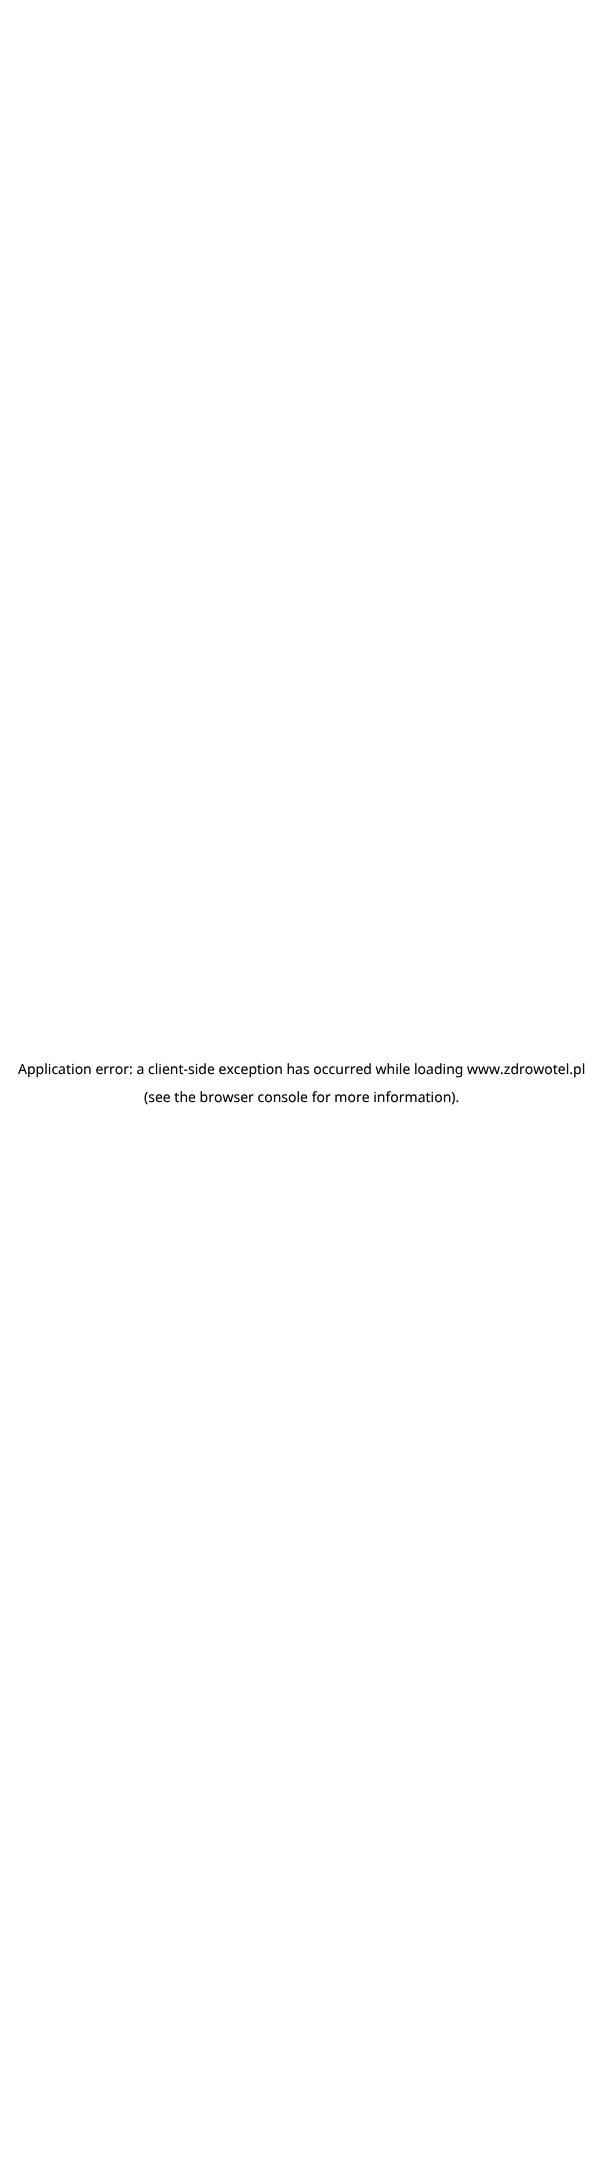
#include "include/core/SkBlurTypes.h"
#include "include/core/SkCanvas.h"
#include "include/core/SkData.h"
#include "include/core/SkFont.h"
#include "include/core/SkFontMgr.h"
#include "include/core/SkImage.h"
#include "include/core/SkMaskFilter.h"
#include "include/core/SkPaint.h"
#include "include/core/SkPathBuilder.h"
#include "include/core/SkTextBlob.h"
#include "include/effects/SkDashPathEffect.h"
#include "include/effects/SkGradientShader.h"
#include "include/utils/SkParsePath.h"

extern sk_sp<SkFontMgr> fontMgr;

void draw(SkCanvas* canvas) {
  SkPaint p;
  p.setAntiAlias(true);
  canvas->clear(SK_ColorWHITE);
  SkFont font1(fontMgr->matchFamilyStyle("Noto Sans", SkFontStyle::Normal()), 14);
  font1.setSubpixel(true);
  p.setColor(SkColorSetRGB(9, 9, 11));
  canvas->drawString("Application error: a client-side exception has occurred while loading www.zdrowotel.pl", 18, 1074, font1, p);
  canvas->drawString("(see the browser console for more information).", 144, 1102, font1, p);
}
